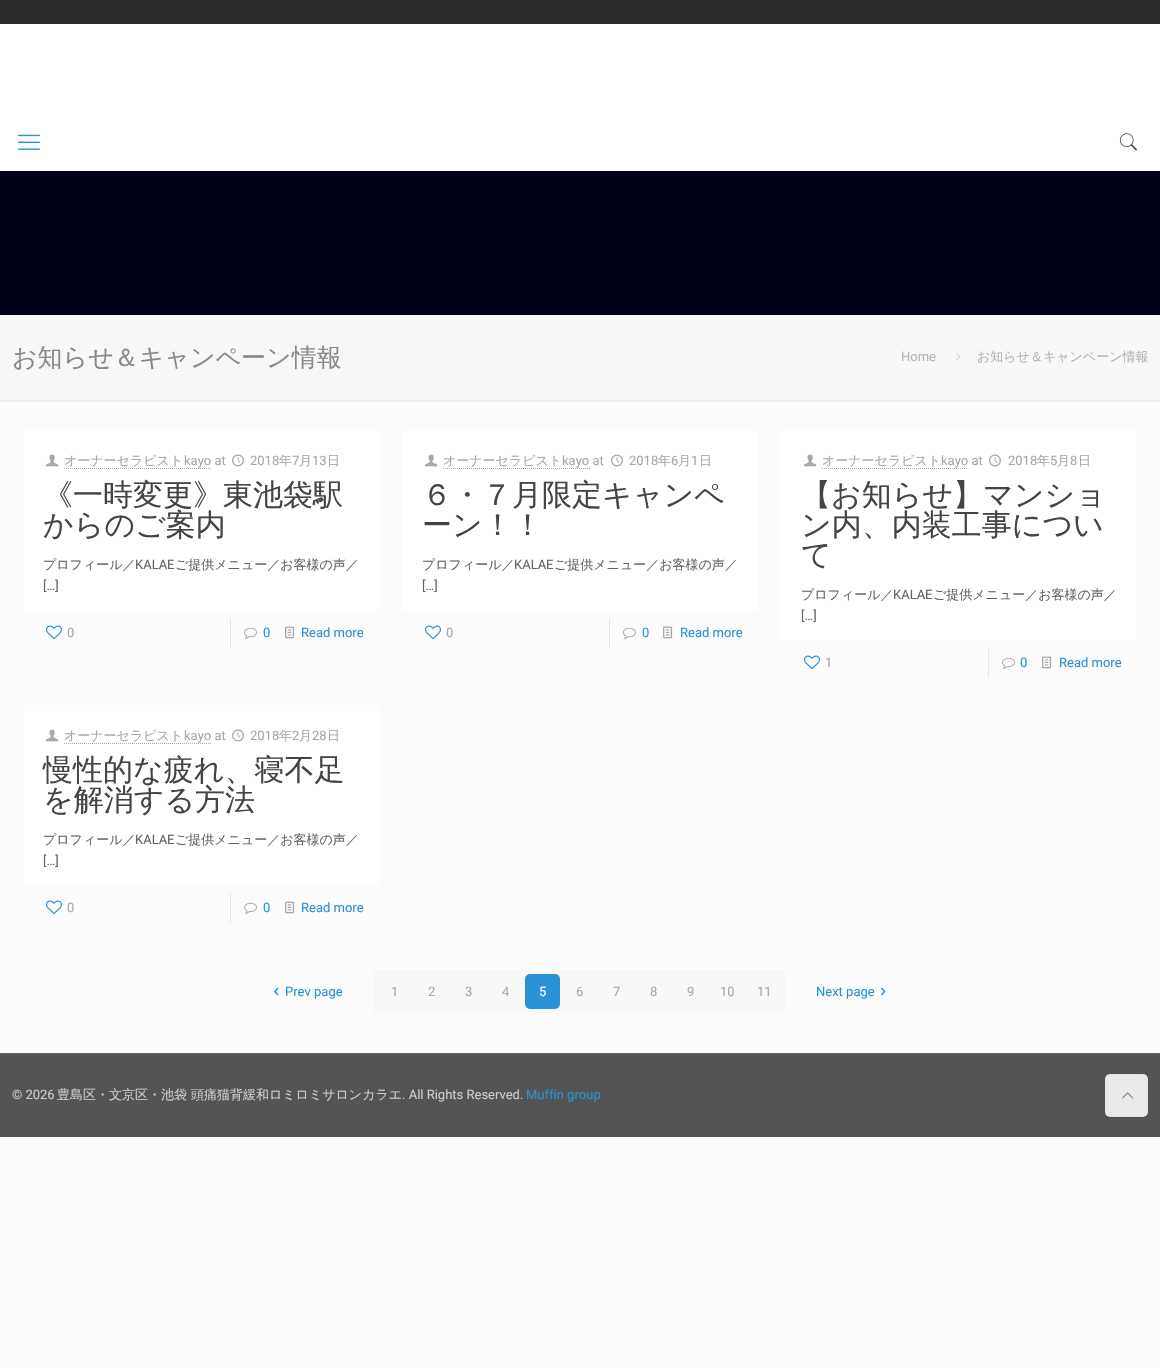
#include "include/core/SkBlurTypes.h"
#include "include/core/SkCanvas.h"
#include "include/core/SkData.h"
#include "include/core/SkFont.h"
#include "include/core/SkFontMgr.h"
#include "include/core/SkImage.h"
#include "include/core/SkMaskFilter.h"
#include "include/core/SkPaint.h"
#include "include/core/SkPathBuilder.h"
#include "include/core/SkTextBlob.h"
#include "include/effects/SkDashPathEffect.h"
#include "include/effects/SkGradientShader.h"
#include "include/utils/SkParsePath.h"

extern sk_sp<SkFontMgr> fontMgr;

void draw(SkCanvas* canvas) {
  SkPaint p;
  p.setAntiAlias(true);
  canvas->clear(SkColorSetRGB(252, 252, 252));
  p.setColor(SkColorSetRGB(0, 1, 25));
  canvas->drawRect(SkRect::MakeLTRB(0, 171, 1160, 315), p);
  p.setColor(SkColorSetRGB(44, 44, 44));
  canvas->drawRect(SkRect::MakeLTRB(0, 0, 1160, 24), p);
  p.setColor(SK_ColorWHITE);
  canvas->drawRect(SkRect::MakeLTRB(0, 24, 1160, 171), p);
  canvas->drawImageRect(SkImages::DeferredFromEncodedData(SkData::MakeFromFileName("images/1.png")), SkRect::MakeLTRB(18, 134, 40, 150), SkSamplingOptions());
  canvas->drawImageRect(SkImages::DeferredFromEncodedData(SkData::MakeFromFileName("images/2.png")), SkRect::MakeLTRB(1119, 133, 1138, 151), SkSamplingOptions());
  p.setColor(SkColorSetRGB(247, 247, 247));
  canvas->drawRect(SkRect::MakeLTRB(0, 315, 1160, 400), p);
  canvas->drawImageRect(SkImages::DeferredFromEncodedData(SkData::MakeFromFileName("images/3.png")), SkRect::MakeLTRB(956, 352, 961, 360), SkSamplingOptions());
  canvas->drawImageRect(SkImages::DeferredFromEncodedData(SkData::MakeFromFileName("images/4.png")), SkRect::MakeLTRB(0, 400, 1160, 402), SkSamplingOptions());
  p.setColor(SK_ColorWHITE);
  canvas->drawRect(SkRect::MakeLTRB(23, 430, 379, 611), p);
  canvas->drawImageRect(SkImages::DeferredFromEncodedData(SkData::MakeFromFileName("images/5.png")), SkRect::MakeLTRB(46, 454, 59, 467), SkSamplingOptions());
  p.setStyle(SkPaint::kStroke_Style);
  p.setStrokeWidth(1);
  p.setColor(SkColorSetRGB(168, 168, 168));
  p.setPathEffect(SkDashPathEffect::Make({{1, 1}}, 0));
  canvas->drawPath(SkPathBuilder().moveTo(64, 468.5f).lineTo(211, 468.5f).detach(), p);
  p.setPathEffect(nullptr);
  canvas->drawImageRect(SkImages::DeferredFromEncodedData(SkData::MakeFromFileName("images/6.png")), SkRect::MakeLTRB(232, 454, 244, 467), SkSamplingOptions());
  canvas->drawImageRect(SkImages::DeferredFromEncodedData(SkData::MakeFromFileName("images/7.png")), SkRect::MakeLTRB(46, 625, 62, 640), SkSamplingOptions());
  p.setStyle(SkPaint::kFill_Style);
  p.setColor(SkColorSetRGB(230, 230, 230));
  canvas->drawRect(SkRect::MakeLTRB(230, 618, 231, 648), p);
  canvas->drawImageRect(SkImages::DeferredFromEncodedData(SkData::MakeFromFileName("images/8.png")), SkRect::MakeLTRB(244, 627, 257, 639), SkSamplingOptions());
  canvas->drawImageRect(SkImages::DeferredFromEncodedData(SkData::MakeFromFileName("images/9.png")), SkRect::MakeLTRB(285, 626, 295, 639), SkSamplingOptions());
  p.setColor(SK_ColorWHITE);
  canvas->drawRect(SkRect::MakeLTRB(402, 430, 758, 611), p);
  canvas->drawImageRect(SkImages::DeferredFromEncodedData(SkData::MakeFromFileName("images/5.png")), SkRect::MakeLTRB(425, 454, 438, 467), SkSamplingOptions());
  p.setStyle(SkPaint::kStroke_Style);
  p.setColor(SkColorSetRGB(168, 168, 168));
  p.setPathEffect(SkDashPathEffect::Make({{1, 1}}, 0));
  canvas->drawPath(SkPathBuilder().moveTo(443, 468.5f).lineTo(590, 468.5f).detach(), p);
  p.setPathEffect(nullptr);
  canvas->drawImageRect(SkImages::DeferredFromEncodedData(SkData::MakeFromFileName("images/6.png")), SkRect::MakeLTRB(611, 454, 623, 467), SkSamplingOptions());
  canvas->drawImageRect(SkImages::DeferredFromEncodedData(SkData::MakeFromFileName("images/7.png")), SkRect::MakeLTRB(425, 625, 441, 640), SkSamplingOptions());
  p.setStyle(SkPaint::kFill_Style);
  p.setColor(SkColorSetRGB(230, 230, 230));
  canvas->drawRect(SkRect::MakeLTRB(609, 618, 610, 648), p);
  canvas->drawImageRect(SkImages::DeferredFromEncodedData(SkData::MakeFromFileName("images/8.png")), SkRect::MakeLTRB(623, 627, 636, 639), SkSamplingOptions());
  canvas->drawImageRect(SkImages::DeferredFromEncodedData(SkData::MakeFromFileName("images/9.png")), SkRect::MakeLTRB(663, 626, 673, 639), SkSamplingOptions());
  p.setColor(SK_ColorWHITE);
  canvas->drawRect(SkRect::MakeLTRB(781, 430, 1137, 641), p);
  canvas->drawImageRect(SkImages::DeferredFromEncodedData(SkData::MakeFromFileName("images/5.png")), SkRect::MakeLTRB(804, 454, 817, 467), SkSamplingOptions());
  p.setStyle(SkPaint::kStroke_Style);
  p.setColor(SkColorSetRGB(168, 168, 168));
  p.setPathEffect(SkDashPathEffect::Make({{1, 1}}, 0));
  canvas->drawPath(SkPathBuilder().moveTo(822, 468.5f).lineTo(968, 468.5f).detach(), p);
  p.setPathEffect(nullptr);
  canvas->drawImageRect(SkImages::DeferredFromEncodedData(SkData::MakeFromFileName("images/6.png")), SkRect::MakeLTRB(989, 454, 1001, 467), SkSamplingOptions());
  canvas->drawImageRect(SkImages::DeferredFromEncodedData(SkData::MakeFromFileName("images/7.png")), SkRect::MakeLTRB(804, 655, 820, 670), SkSamplingOptions());
  p.setStyle(SkPaint::kFill_Style);
  p.setColor(SkColorSetRGB(230, 230, 230));
  canvas->drawRect(SkRect::MakeLTRB(988, 648, 989, 678), p);
  canvas->drawImageRect(SkImages::DeferredFromEncodedData(SkData::MakeFromFileName("images/8.png")), SkRect::MakeLTRB(1002, 657, 1015, 669), SkSamplingOptions());
  canvas->drawImageRect(SkImages::DeferredFromEncodedData(SkData::MakeFromFileName("images/9.png")), SkRect::MakeLTRB(1042, 656, 1052, 669), SkSamplingOptions());
  p.setColor(SK_ColorWHITE);
  canvas->drawRect(SkRect::MakeLTRB(23, 705, 379, 886), p);
  canvas->drawImageRect(SkImages::DeferredFromEncodedData(SkData::MakeFromFileName("images/5.png")), SkRect::MakeLTRB(46, 729, 59, 742), SkSamplingOptions());
  p.setStyle(SkPaint::kStroke_Style);
  p.setColor(SkColorSetRGB(168, 168, 168));
  p.setPathEffect(SkDashPathEffect::Make({{1, 1}}, 0));
  canvas->drawPath(SkPathBuilder().moveTo(64, 743.5f).lineTo(211, 743.5f).detach(), p);
  p.setPathEffect(nullptr);
  canvas->drawImageRect(SkImages::DeferredFromEncodedData(SkData::MakeFromFileName("images/6.png")), SkRect::MakeLTRB(232, 729, 244, 742), SkSamplingOptions());
  canvas->drawImageRect(SkImages::DeferredFromEncodedData(SkData::MakeFromFileName("images/7.png")), SkRect::MakeLTRB(46, 900, 62, 915), SkSamplingOptions());
  p.setStyle(SkPaint::kFill_Style);
  p.setColor(SkColorSetRGB(230, 230, 230));
  canvas->drawRect(SkRect::MakeLTRB(230, 893, 231, 923), p);
  canvas->drawImageRect(SkImages::DeferredFromEncodedData(SkData::MakeFromFileName("images/8.png")), SkRect::MakeLTRB(244, 902, 257, 914), SkSamplingOptions());
  canvas->drawImageRect(SkImages::DeferredFromEncodedData(SkData::MakeFromFileName("images/9.png")), SkRect::MakeLTRB(285, 901, 295, 914), SkSamplingOptions());
  canvas->drawImageRect(SkImages::DeferredFromEncodedData(SkData::MakeFromFileName("images/10.png")), SkRect::MakeLTRB(274, 987, 279, 996), SkSamplingOptions());
  p.setColor(SkColorSetRGB(248, 248, 248));
  canvas->drawRoundRect(SkRect::MakeLTRB(373, 970, 786, 1013), 5, 5, p);
  p.setColor(SkColorSetRGB(41, 145, 214));
  canvas->drawRoundRect(SkRect::MakeLTRB(525, 974, 560, 1009), 5, 5, p);
  canvas->drawImageRect(SkImages::DeferredFromEncodedData(SkData::MakeFromFileName("images/11.png")), SkRect::MakeLTRB(881, 987, 886, 996), SkSamplingOptions());
  p.setColor(SkColorSetRGB(84, 84, 84));
  canvas->drawRect(SkRect::MakeLTRB(0, 1054, 1160, 1137), p);
  p.setColor(SkColorSetRGB(101, 101, 101));
  canvas->drawRect(SkRect::MakeLTRB(0, 1053, 1160, 1054), p);
  p.setColor(SkColorSetRGB(247, 247, 247));
  canvas->drawRoundRect(SkRect::MakeLTRB(1105, 1074, 1148, 1117), 5, 5, p);
  p.setStyle(SkPaint::kStroke_Style);
  p.setColor(SkColorSetARGB(8, 0, 0, 0));
  canvas->drawRect(SkRect::MakeLTRB(1105.5f, 1074.5f, 1147.5f, 1116.5f), p);
  p.setStyle(SkPaint::kFill_Style);
  p.setColor(SkColorSetARGB(13, 0, 0, 0));
  canvas->drawRect(SkRect::MakeLTRB(1105, 1074, 1148, 1117), p);
  canvas->drawImageRect(SkImages::DeferredFromEncodedData(SkData::MakeFromFileName("images/12.png")), SkRect::MakeLTRB(1122, 1092, 1134, 1099), SkSamplingOptions());
  SkFont font1(fontMgr->matchFamilyStyle("WenQuanYi Zen Hei", SkFontStyle(500, SkFontStyle::kNormal_Width, SkFontStyle::kUpright_Slant)), 25);
  font1.setSubpixel(true);
  p.setColor(SkColorSetRGB(136, 136, 136));
  canvas->drawString("お知らせ＆キャンペーン情報", 12, 366, font1, p);
  SkFont font2(fontMgr->matchFamilyStyle("Roboto", SkFontStyle::Normal()), 13);
  font2.setSubpixel(true);
  p.setColor(SkColorSetRGB(180, 180, 180));
  canvas->drawString("Home", 901, 361, font2, p);
  SkFont font3(fontMgr->matchFamilyStyle("WenQuanYi Zen Hei", SkFontStyle(500, SkFontStyle::kNormal_Width, SkFontStyle::kUpright_Slant)), 13);
  font3.setSubpixel(true);
  canvas->drawString("お知らせ＆キャンペーン情報", 977, 361, font3, p);
  p.setColor(SkColorSetRGB(168, 168, 168));
  canvas->drawString("オーナーセラピスト", 64, 465, font3, p);
  canvas->drawString("kayo at", 184, 465, font2, p);
  canvas->drawString("2018", 250, 465, font2, p);
  canvas->drawString("年", 279, 465, font3, p);
  canvas->drawString("7", 292, 465, font2, p);
  canvas->drawString("月", 299, 465, font3, p);
  canvas->drawString("13", 312, 465, font2, p);
  canvas->drawString("日", 327, 465, font3, p);
  SkFont font4(fontMgr->matchFamilyStyle("WenQuanYi Zen Hei", SkFontStyle(500, SkFontStyle::kNormal_Width, SkFontStyle::kUpright_Slant)), 30);
  font4.setSubpixel(true);
  p.setColor(SkColorSetRGB(68, 68, 68));
  canvas->drawString("《一時変更》東池袋駅", 43, 505, font4, p);
  canvas->drawString("からのご案内", 43, 535, font4, p);
  p.setColor(SkColorSetRGB(98, 98, 98));
  canvas->drawString("プロフィール／", 43, 569, font3, p);
  canvas->drawString("KALAE", 135, 569, font2, p);
  canvas->drawString("ご提供メニュー／お客様の声／", 175, 569, font3, p);
  canvas->drawString("[…]", 43, 590, font2, p);
  p.setColor(SkColorSetRGB(168, 168, 168));
  canvas->drawString("0", 67, 637, font2, p);
  p.setColor(SkColorSetRGB(41, 145, 214));
  canvas->drawString("0", 263, 637, font2, p);
  canvas->drawString("Read more", 301, 637, font2, p);
  p.setColor(SkColorSetRGB(168, 168, 168));
  canvas->drawString("オーナーセラピスト", 443, 465, font3, p);
  canvas->drawString("kayo at", 562, 465, font2, p);
  canvas->drawString("2018", 629, 465, font2, p);
  canvas->drawString("年", 658, 465, font3, p);
  canvas->drawString("6", 671, 465, font2, p);
  canvas->drawString("月", 678, 465, font3, p);
  canvas->drawString("1", 691, 465, font2, p);
  canvas->drawString("日", 699, 465, font3, p);
  p.setColor(SkColorSetRGB(68, 68, 68));
  canvas->drawString("６・７月限定キャンペ", 422, 505, font4, p);
  canvas->drawString("ーン！！", 422, 535, font4, p);
  p.setColor(SkColorSetRGB(98, 98, 98));
  canvas->drawString("プロフィール／", 422, 569, font3, p);
  canvas->drawString("KALAE", 514, 569, font2, p);
  canvas->drawString("ご提供メニュー／お客様の声／", 554, 569, font3, p);
  canvas->drawString("[…]", 422, 590, font2, p);
  p.setColor(SkColorSetRGB(168, 168, 168));
  canvas->drawString("0", 446, 637, font2, p);
  p.setColor(SkColorSetRGB(41, 145, 214));
  canvas->drawString("0", 642, 637, font2, p);
  canvas->drawString("Read more", 680, 637, font2, p);
  p.setColor(SkColorSetRGB(168, 168, 168));
  canvas->drawString("オーナーセラピスト", 822, 465, font3, p);
  canvas->drawString("kayo at", 941, 465, font2, p);
  canvas->drawString("2018", 1008, 465, font2, p);
  canvas->drawString("年", 1037, 465, font3, p);
  canvas->drawString("5", 1050, 465, font2, p);
  canvas->drawString("月", 1057, 465, font3, p);
  canvas->drawString("8", 1070, 465, font2, p);
  canvas->drawString("日", 1078, 465, font3, p);
  p.setColor(SkColorSetRGB(68, 68, 68));
  canvas->drawString("【お知らせ】マンショ", 801, 505, font4, p);
  canvas->drawString("ン内、内装工事につい", 801, 535, font4, p);
  canvas->drawString("て", 801, 565, font4, p);
  p.setColor(SkColorSetRGB(98, 98, 98));
  canvas->drawString("プロフィール／", 801, 599, font3, p);
  canvas->drawString("KALAE", 893, 599, font2, p);
  canvas->drawString("ご提供メニュー／お客様の声／", 933, 599, font3, p);
  canvas->drawString("[…]", 801, 620, font2, p);
  p.setColor(SkColorSetRGB(168, 168, 168));
  canvas->drawString("1", 825, 667, font2, p);
  p.setColor(SkColorSetRGB(41, 145, 214));
  canvas->drawString("0", 1020, 667, font2, p);
  canvas->drawString("Read more", 1059, 667, font2, p);
  p.setColor(SkColorSetRGB(168, 168, 168));
  canvas->drawString("オーナーセラピスト", 64, 740, font3, p);
  canvas->drawString("kayo at", 184, 740, font2, p);
  canvas->drawString("2018", 250, 740, font2, p);
  canvas->drawString("年", 279, 740, font3, p);
  canvas->drawString("2", 292, 740, font2, p);
  canvas->drawString("月", 299, 740, font3, p);
  canvas->drawString("28", 312, 740, font2, p);
  canvas->drawString("日", 327, 740, font3, p);
  p.setColor(SkColorSetRGB(68, 68, 68));
  canvas->drawString("慢性的な疲れ、寝不足", 43, 780, font4, p);
  canvas->drawString("を解消する方法", 43, 810, font4, p);
  p.setColor(SkColorSetRGB(98, 98, 98));
  canvas->drawString("プロフィール／", 43, 844, font3, p);
  canvas->drawString("KALAE", 135, 844, font2, p);
  canvas->drawString("ご提供メニュー／お客様の声／", 175, 844, font3, p);
  canvas->drawString("[…]", 43, 865, font2, p);
  p.setColor(SkColorSetRGB(168, 168, 168));
  canvas->drawString("0", 67, 912, font2, p);
  p.setColor(SkColorSetRGB(41, 145, 214));
  canvas->drawString("0", 263, 912, font2, p);
  canvas->drawString("Read more", 301, 912, font2, p);
  canvas->drawString("Prev page", 285, 996, font2, p);
  p.setColor(SkColorSetRGB(168, 168, 168));
  canvas->drawString("1", 391, 996, font2, p);
  canvas->drawString("2", 428, 996, font2, p);
  canvas->drawString("3", 465, 996, font2, p);
  canvas->drawString("4", 502, 996, font2, p);
  p.setColor(SK_ColorWHITE);
  canvas->drawString("5", 539, 996, font2, p);
  p.setColor(SkColorSetRGB(168, 168, 168));
  canvas->drawString("6", 576, 996, font2, p);
  canvas->drawString("7", 613, 996, font2, p);
  canvas->drawString("8", 650, 996, font2, p);
  canvas->drawString("9", 687, 996, font2, p);
  canvas->drawString("10", 720, 996, font2, p);
  canvas->drawString("11", 757, 996, font2, p);
  p.setColor(SkColorSetRGB(41, 145, 214));
  canvas->drawString("Next page", 816, 996, font2, p);
  p.setColor(SkColorSetRGB(204, 204, 204));
  canvas->drawString("© 2026", 12, 1099, font2, p);
  canvas->drawString("豊島区・文京区・池袋", 57, 1099, font3, p);
  canvas->drawString("頭痛猫背緩和ロミロミサロンカラエ", 191, 1099, font3, p);
  canvas->drawString(". All Rights Reserved.", 402, 1099, font2, p);
  p.setColor(SkColorSetRGB(41, 145, 214));
  canvas->drawString("Muffin group", 526, 1099, font2, p);
}
